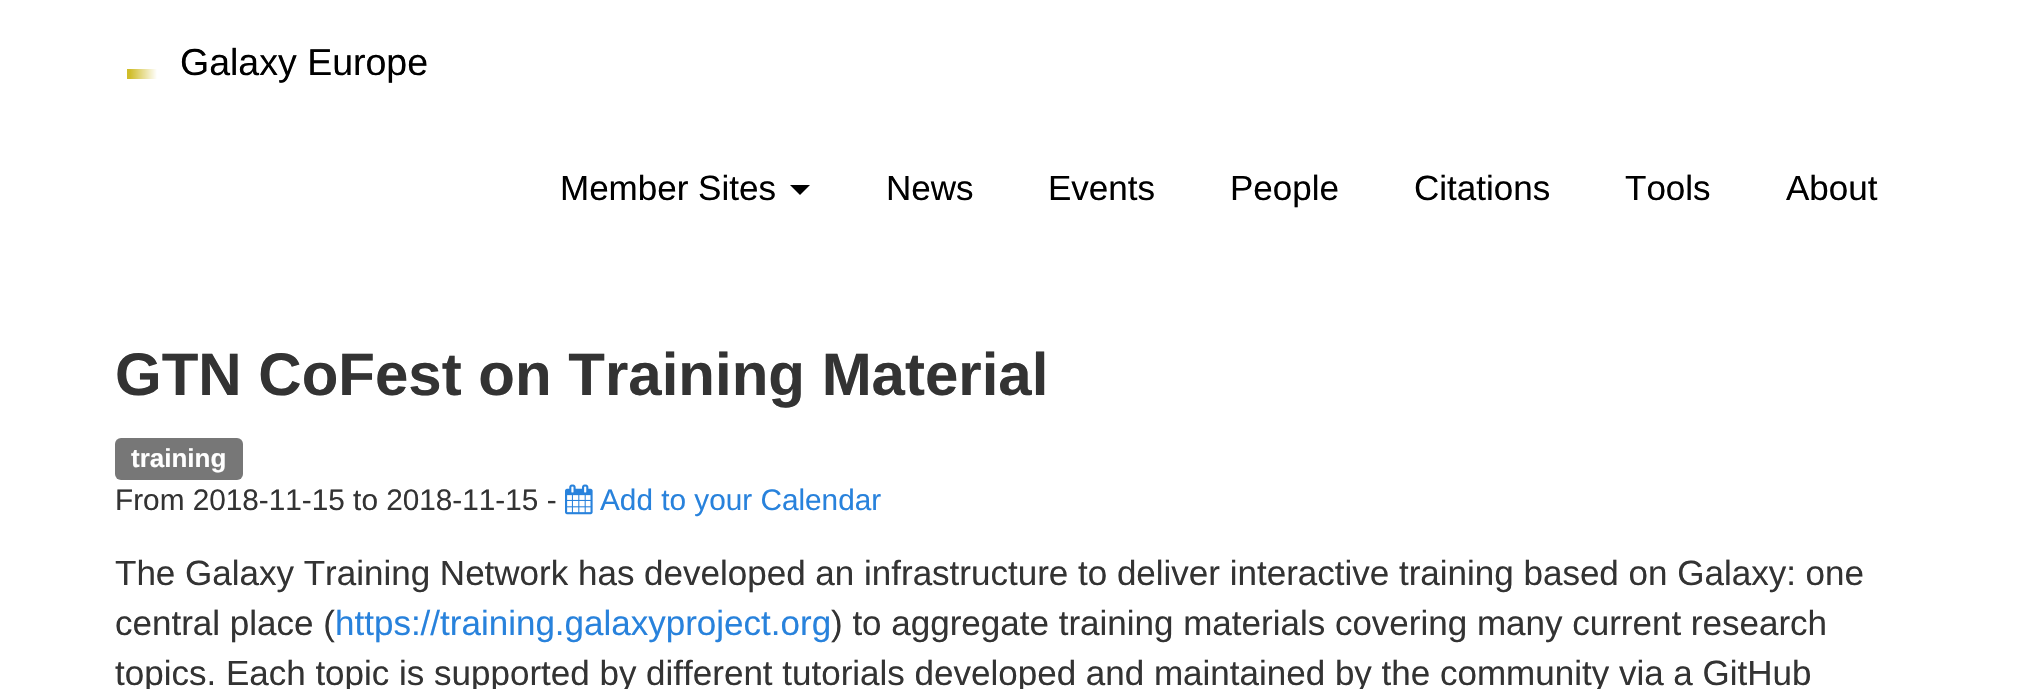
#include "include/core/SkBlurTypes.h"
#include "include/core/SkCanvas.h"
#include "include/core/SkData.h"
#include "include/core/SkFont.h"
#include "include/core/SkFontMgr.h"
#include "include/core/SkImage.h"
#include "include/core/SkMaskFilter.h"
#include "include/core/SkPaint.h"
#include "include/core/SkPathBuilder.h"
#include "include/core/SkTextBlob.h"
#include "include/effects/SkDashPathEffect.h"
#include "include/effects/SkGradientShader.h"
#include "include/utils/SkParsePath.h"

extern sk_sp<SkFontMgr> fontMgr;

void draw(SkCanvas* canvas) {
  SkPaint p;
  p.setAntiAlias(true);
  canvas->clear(SK_ColorWHITE);
  {
    const SkColor colors[] = {SkColorSetRGB(208, 189, 42), SK_ColorWHITE};
    const float stops[] = {0, 1};
    const SkPoint ends[] = {{130, 74}, {157, 74}};
    p.setShader(SkGradientShader::MakeLinear(ends, colors, stops, 2, SkTileMode::kClamp));
    p.setAlpha(255);
  }
  canvas->drawRect(SkRect::MakeLTRB(127, 69, 157, 79), p);
  p.setShader(nullptr);
  p.setColor(SK_ColorBLACK);
  canvas->drawPath(SkPathBuilder().moveTo(790, 185).lineTo(810, 185).lineTo(800, 195).close().detach(), p);
  p.setColor(SkColorSetRGB(119, 119, 119));
  canvas->drawRoundRect(SkRect::MakeLTRB(115, 438, 243, 480), 6, 6, p);
  canvas->drawImageRect(SkImages::DeferredFromEncodedData(SkData::MakeFromFileName("images/1.png")), SkRect::MakeLTRB(565, 484, 593, 515), SkSamplingOptions());
  SkFont font1(fontMgr->matchFamilyStyle("Liberation Sans", SkFontStyle::Normal()), 37.5f);
  font1.setSubpixel(true);
  p.setColor(SK_ColorBLACK);
  canvas->drawString("Galaxy Europe", 180, 75, font1, p);
  SkFont font2(fontMgr->matchFamilyStyle("Liberation Sans", SkFontStyle::Normal()), 35);
  font2.setSubpixel(true);
  canvas->drawString("Member Sites", 560, 200, font2, p);
  canvas->drawString("News", 886, 200, font2, p);
  canvas->drawString("Events", 1048, 200, font2, p);
  canvas->drawString("People", 1230, 200, font2, p);
  canvas->drawString("Citations", 1414, 200, font2, p);
  canvas->drawString("Tools", 1625, 200, font2, p);
  canvas->drawString("About", 1786, 200, font2, p);
  SkFont font3(fontMgr->matchFamilyStyle("Liberation Sans", SkFontStyle::Bold()), 60);
  font3.setSubpixel(true);
  p.setColor(SkColorSetRGB(51, 51, 51));
  canvas->drawString("GTN CoFest on Training Material", 115, 395, font3, p);
  SkFont font4(fontMgr->matchFamilyStyle("Liberation Sans", SkFontStyle::Bold()), 26);
  font4.setSubpixel(true);
  p.setColor(SK_ColorWHITE);
  canvas->drawString("training", 131, 467, font4, p);
  SkFont font5(fontMgr->matchFamilyStyle("Liberation Sans", SkFontStyle::Normal()), 29.75f);
  font5.setSubpixel(true);
  p.setColor(SkColorSetRGB(51, 51, 51));
  canvas->drawString("From 2018-11-15 to 2018-11-15 -", 115, 510, font5, p);
  p.setColor(SkColorSetRGB(40, 130, 220));
  canvas->drawString("Add to your Calendar", 600, 510, font5, p);
  p.setColor(SkColorSetRGB(51, 51, 51));
  canvas->drawString("The Galaxy Training Network has developed an infrastructure to deliver interactive training based on Galaxy: one", 115, 585, font2, p);
  canvas->drawString("central place (", 115, 635, font2, p);
  p.setColor(SkColorSetRGB(40, 130, 220));
  canvas->drawString("https://training.galaxyproject.org", 335, 635, font2, p);
  p.setColor(SkColorSetRGB(51, 51, 51));
  canvas->drawString(") to aggregate training materials covering many current research", 831, 635, font2, p);
  canvas->drawString("topics. Each topic is supported by different tutorials developed and maintained by the community via a GitHub", 115, 685, font2, p);
}
